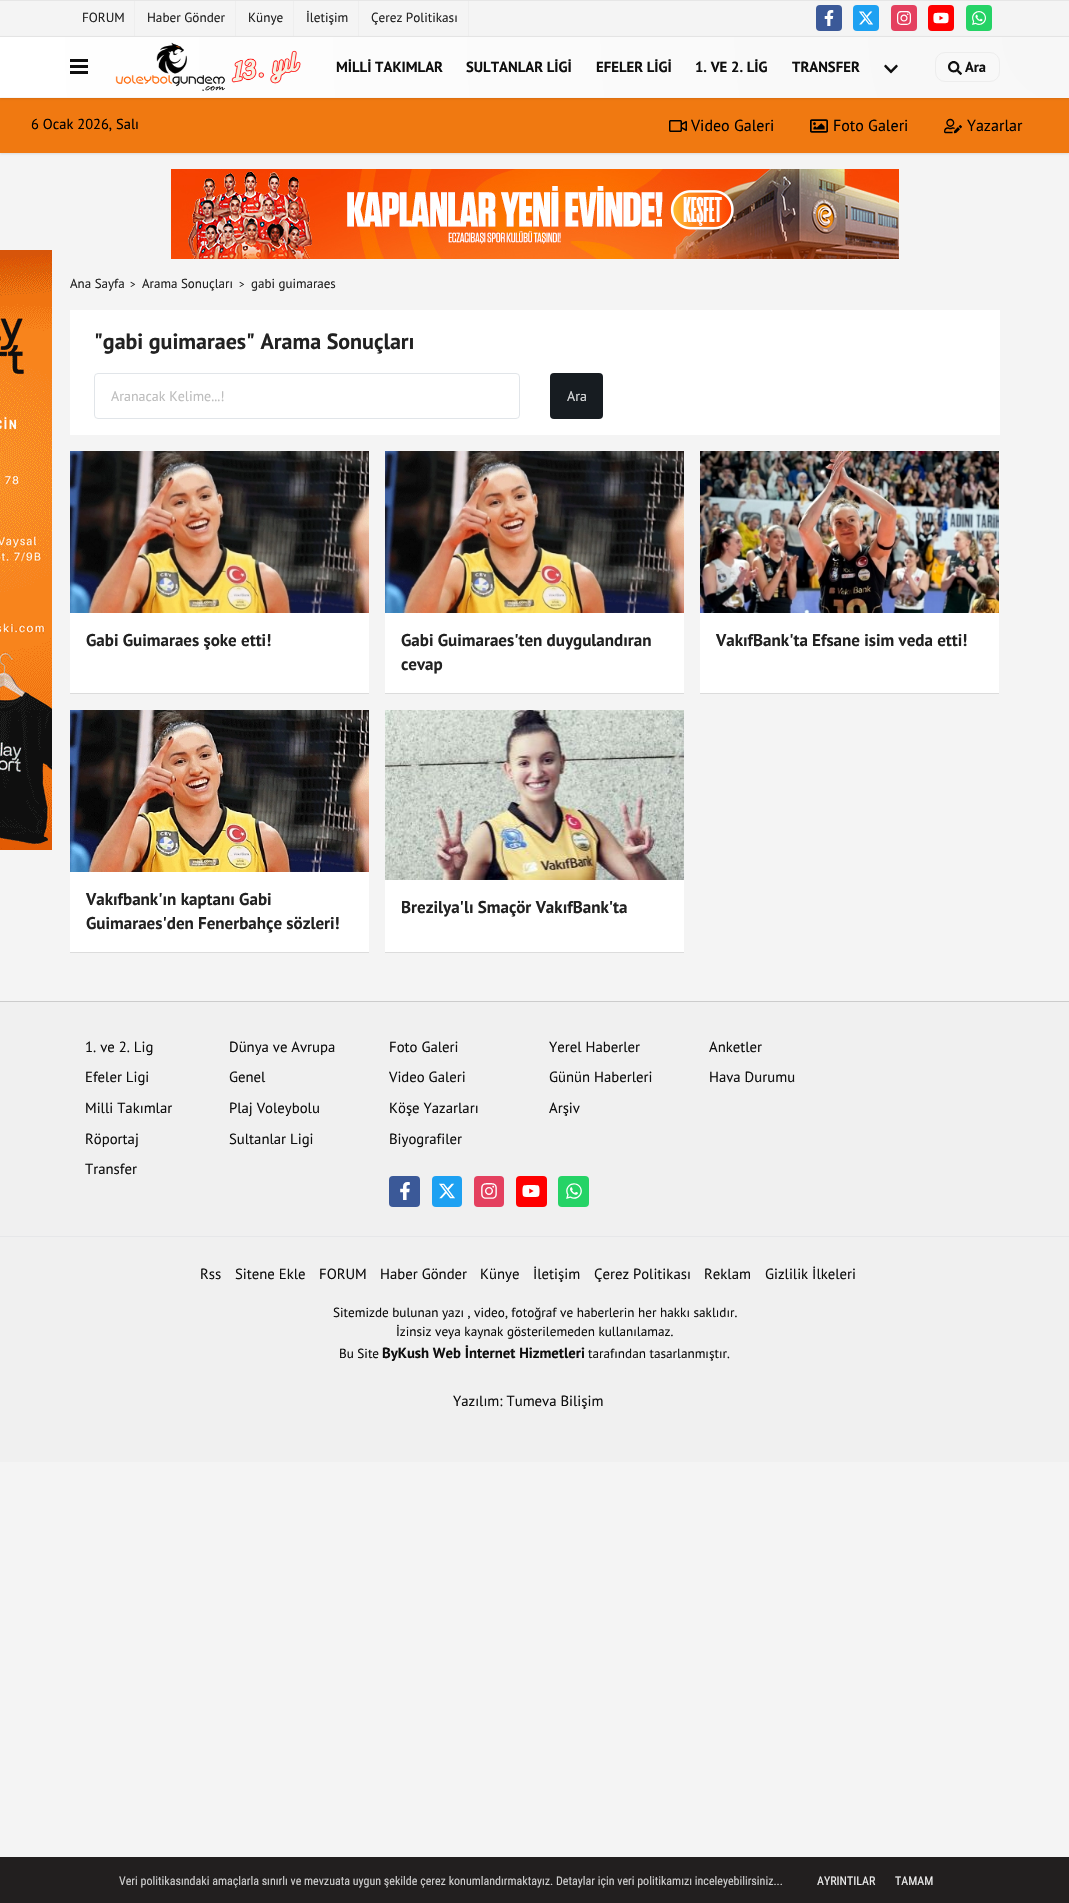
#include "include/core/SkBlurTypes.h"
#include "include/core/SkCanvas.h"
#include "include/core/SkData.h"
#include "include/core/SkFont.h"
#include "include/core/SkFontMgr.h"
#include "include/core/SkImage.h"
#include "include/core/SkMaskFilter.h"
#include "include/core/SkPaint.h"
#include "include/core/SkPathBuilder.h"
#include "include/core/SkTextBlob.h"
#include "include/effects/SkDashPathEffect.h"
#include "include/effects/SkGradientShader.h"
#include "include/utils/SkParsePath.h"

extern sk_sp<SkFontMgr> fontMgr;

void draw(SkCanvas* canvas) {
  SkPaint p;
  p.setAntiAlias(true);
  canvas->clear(SkColorSetRGB(244, 244, 244));
  p.setColor(SkColorSetRGB(230, 230, 230));
  canvas->drawRect(SkRect::MakeLTRB(0, 0, 1069, 1), p);
  p.setColor(SkColorSetRGB(238, 238, 238));
  canvas->drawRect(SkRect::MakeLTRB(134, 1, 135, 36), p);
  canvas->drawRect(SkRect::MakeLTRB(235, 1, 236, 36), p);
  canvas->drawRect(SkRect::MakeLTRB(293, 1, 294, 36), p);
  canvas->drawRect(SkRect::MakeLTRB(358, 1, 359, 36), p);
  canvas->drawRect(SkRect::MakeLTRB(468, 1, 469, 36), p);
  p.setColor(SkColorSetRGB(59, 89, 152));
  canvas->drawRoundRect(SkRect::MakeLTRB(816, 5, 842, 31), 4, 4, p);
  canvas->drawImageRect(SkImages::DeferredFromEncodedData(SkData::MakeFromFileName("images/1.png")), SkRect::MakeLTRB(824, 10, 834, 26), SkSamplingOptions());
  p.setColor(SkColorSetRGB(29, 161, 242));
  canvas->drawRoundRect(SkRect::MakeLTRB(853, 5, 879, 31), 4, 4, p);
  canvas->drawImageRect(SkImages::DeferredFromEncodedData(SkData::MakeFromFileName("images/2.png")), SkRect::MakeLTRB(859, 11, 873, 25), SkSamplingOptions());
  p.setColor(SkColorSetRGB(228, 64, 95));
  canvas->drawRoundRect(SkRect::MakeLTRB(891, 5, 917, 31), 4, 4, p);
  canvas->drawImageRect(SkImages::DeferredFromEncodedData(SkData::MakeFromFileName("images/3.png")), SkRect::MakeLTRB(897, 11, 911, 25), SkSamplingOptions());
  p.setColor(SkColorSetRGB(255, 0, 0));
  canvas->drawRoundRect(SkRect::MakeLTRB(928, 5, 954, 31), 4, 4, p);
  canvas->drawImageRect(SkImages::DeferredFromEncodedData(SkData::MakeFromFileName("images/4.png")), SkRect::MakeLTRB(933, 12, 949, 24), SkSamplingOptions());
  p.setColor(SkColorSetRGB(37, 211, 102));
  canvas->drawRoundRect(SkRect::MakeLTRB(966, 5, 992, 31), 4, 4, p);
  canvas->drawImageRect(SkImages::DeferredFromEncodedData(SkData::MakeFromFileName("images/5.png")), SkRect::MakeLTRB(972, 11, 986, 25), SkSamplingOptions());
  p.setColor(SkColorSetRGB(230, 230, 230));
  canvas->drawRect(SkRect::MakeLTRB(0, 36, 1069, 37), p);
  p.setColor(SkColorSetARGB(26, 0, 0, 0));
  p.setMaskFilter(SkMaskFilter::MakeBlur(kNormal_SkBlurStyle, 1));
  canvas->drawRect(SkRect::MakeLTRB(0, 99, 1069, 154), p);
  p.setMaskFilter(nullptr);
  p.setColor(SkColorSetRGB(240, 121, 17));
  canvas->drawRect(SkRect::MakeLTRB(0, 98, 1069, 153), p);
  p.setColor(SkColorSetARGB(26, 0, 0, 0));
  p.setMaskFilter(SkMaskFilter::MakeBlur(kNormal_SkBlurStyle, 1));
  canvas->drawRect(SkRect::MakeLTRB(0, 38, 1069, 99), p);
  p.setMaskFilter(nullptr);
  {
    const SkColor colors[] = {SkColorSetRGB(247, 247, 247), SK_ColorWHITE};
    const float stops[] = {0, 1};
    p.setShader(SkGradientShader::MakeRadial({1069, 37}, 1071, colors, stops, 2, SkTileMode::kClamp));
    p.setAlpha(255);
  }
  canvas->drawRect(SkRect::MakeLTRB(0, 37, 1069, 97), p);
  p.setShader(nullptr);
  p.setColor(SkColorSetRGB(247, 247, 247));
  canvas->drawRect(SkRect::MakeLTRB(0, 97, 1069, 98), p);
  p.setColor(SkColorSetRGB(15, 15, 15));
  canvas->drawRect(SkRect::MakeLTRB(70, 59, 88, 62), p);
  canvas->drawRect(SkRect::MakeLTRB(70, 65, 88, 68), p);
  canvas->drawRect(SkRect::MakeLTRB(70, 71, 88, 74), p);
  canvas->drawImageRect(SkImages::DeferredFromEncodedData(SkData::MakeFromFileName("images/6.png")), SkRect::MakeLTRB(115, 42, 301, 91), SkSamplingOptions());
  canvas->drawImageRect(SkImages::DeferredFromEncodedData(SkData::MakeFromFileName("images/7.png")), SkRect::MakeLTRB(884, 64, 898, 74), SkSamplingOptions());
  p.setStyle(SkPaint::kStroke_Style);
  p.setStrokeWidth(1);
  p.setColor(SkColorSetRGB(237, 237, 237));
  canvas->drawRoundRect(SkRect::MakeLTRB(935.5f, 52.5f, 999.5f, 81.5f), 9.5f, 9.5f, p);
  canvas->drawImageRect(SkImages::DeferredFromEncodedData(SkData::MakeFromFileName("images/8.png")), SkRect::MakeLTRB(948, 61, 962, 75), SkSamplingOptions());
  canvas->drawImageRect(SkImages::DeferredFromEncodedData(SkData::MakeFromFileName("images/9.png")), SkRect::MakeLTRB(669, 120, 687, 132), SkSamplingOptions());
  canvas->drawImageRect(SkImages::DeferredFromEncodedData(SkData::MakeFromFileName("images/10.png")), SkRect::MakeLTRB(810, 119, 828, 133), SkSamplingOptions());
  canvas->drawImageRect(SkImages::DeferredFromEncodedData(SkData::MakeFromFileName("images/11.png")), SkRect::MakeLTRB(944, 118, 962, 134), SkSamplingOptions());
  canvas->drawImageRect(SkImages::DeferredFromEncodedData(SkData::MakeFromFileName("images/12.png")), SkRect::MakeLTRB(0, 250, 52, 850), SkSamplingOptions());
  canvas->drawImageRect(SkImages::DeferredFromEncodedData(SkData::MakeFromFileName("images/13.png")), SkRect::MakeLTRB(171, 169, 899, 259), SkSamplingOptions());
  p.setStyle(SkPaint::kFill_Style);
  p.setColor(SK_ColorWHITE);
  canvas->drawRect(SkRect::MakeLTRB(70, 310, 1000, 435), p);
  p.setStyle(SkPaint::kStroke_Style);
  p.setColor(SkColorSetRGB(225, 229, 233));
  canvas->drawRoundRect(SkRect::MakeLTRB(94.5f, 373.5f, 519.5f, 418.5f), 3.5f, 3.5f, p);
  p.setStyle(SkPaint::kFill_Style);
  p.setColor(SkColorSetRGB(23, 28, 33));
  canvas->drawRoundRect(SkRect::MakeLTRB(550, 373, 603, 419), 4, 4, p);
  p.setColor(SK_ColorWHITE);
  canvas->drawRect(SkRect::MakeLTRB(70, 613, 369, 693), p);
  p.setColor(SkColorSetRGB(220, 220, 220));
  canvas->drawRect(SkRect::MakeLTRB(70, 693, 369, 694), p);
  canvas->drawImageRect(SkImages::DeferredFromEncodedData(SkData::MakeFromFileName("images/14.png")), SkRect::MakeLTRB(70, 451, 369, 613), SkSamplingOptions());
  p.setColor(SK_ColorWHITE);
  canvas->drawRect(SkRect::MakeLTRB(385, 613, 684, 693), p);
  p.setColor(SkColorSetRGB(220, 220, 220));
  canvas->drawRect(SkRect::MakeLTRB(385, 693, 684, 694), p);
  canvas->drawImageRect(SkImages::DeferredFromEncodedData(SkData::MakeFromFileName("images/15.png")), SkRect::MakeLTRB(385, 451, 684, 613), SkSamplingOptions());
  p.setColor(SK_ColorWHITE);
  canvas->drawRect(SkRect::MakeLTRB(700, 613, 999, 693), p);
  p.setColor(SkColorSetRGB(220, 220, 220));
  canvas->drawRect(SkRect::MakeLTRB(700, 693, 999, 694), p);
  canvas->drawImageRect(SkImages::DeferredFromEncodedData(SkData::MakeFromFileName("images/16.png")), SkRect::MakeLTRB(700, 451, 999, 613), SkSamplingOptions());
  p.setColor(SK_ColorWHITE);
  canvas->drawRect(SkRect::MakeLTRB(70, 872, 369, 952), p);
  p.setColor(SkColorSetRGB(220, 220, 220));
  canvas->drawRect(SkRect::MakeLTRB(70, 952, 369, 953), p);
  canvas->drawImageRect(SkImages::DeferredFromEncodedData(SkData::MakeFromFileName("images/17.png")), SkRect::MakeLTRB(70, 710, 369, 872), SkSamplingOptions());
  p.setColor(SK_ColorWHITE);
  canvas->drawRect(SkRect::MakeLTRB(385, 880, 684, 952), p);
  p.setColor(SkColorSetRGB(220, 220, 220));
  canvas->drawRect(SkRect::MakeLTRB(385, 952, 684, 953), p);
  canvas->drawImageRect(SkImages::DeferredFromEncodedData(SkData::MakeFromFileName("images/18.png")), SkRect::MakeLTRB(385, 710, 684, 880), SkSamplingOptions());
  p.setColor(SkColorSetRGB(240, 240, 240));
  canvas->drawRect(SkRect::MakeLTRB(0, 1002, 1069, 1462), p);
  p.setColor(SkColorSetRGB(204, 204, 204));
  canvas->drawRect(SkRect::MakeLTRB(0, 1001, 1069, 1002), p);
  p.setColor(SkColorSetRGB(59, 89, 152));
  canvas->drawRoundRect(SkRect::MakeLTRB(389, 1176, 420, 1207), 4, 4, p);
  canvas->drawImageRect(SkImages::DeferredFromEncodedData(SkData::MakeFromFileName("images/19.png")), SkRect::MakeLTRB(400, 1182, 410, 1200), SkSamplingOptions());
  p.setColor(SkColorSetRGB(29, 161, 242));
  canvas->drawRoundRect(SkRect::MakeLTRB(432, 1176, 462, 1207), 4, 4, p);
  canvas->drawImageRect(SkImages::DeferredFromEncodedData(SkData::MakeFromFileName("images/20.png")), SkRect::MakeLTRB(439, 1183, 455, 1199), SkSamplingOptions());
  p.setColor(SkColorSetRGB(228, 64, 95));
  canvas->drawRoundRect(SkRect::MakeLTRB(474, 1176, 504, 1207), 4, 4, p);
  canvas->drawImageRect(SkImages::DeferredFromEncodedData(SkData::MakeFromFileName("images/21.png")), SkRect::MakeLTRB(481, 1183, 497, 1199), SkSamplingOptions());
  p.setColor(SkColorSetRGB(255, 0, 0));
  canvas->drawRoundRect(SkRect::MakeLTRB(516, 1176, 547, 1207), 4, 4, p);
  canvas->drawImageRect(SkImages::DeferredFromEncodedData(SkData::MakeFromFileName("images/22.png")), SkRect::MakeLTRB(522, 1185, 540, 1197), SkSamplingOptions());
  p.setColor(SkColorSetRGB(37, 211, 102));
  canvas->drawRoundRect(SkRect::MakeLTRB(558, 1176, 589, 1207), 4, 4, p);
  canvas->drawImageRect(SkImages::DeferredFromEncodedData(SkData::MakeFromFileName("images/23.png")), SkRect::MakeLTRB(566, 1183, 582, 1199), SkSamplingOptions());
  p.setColor(SkColorSetRGB(230, 231, 233));
  canvas->drawRect(SkRect::MakeLTRB(0, 1236, 1069, 1237), p);
  p.setColor(SkColorSetRGB(34, 31, 31));
  canvas->drawRect(SkRect::MakeLTRB(0, 1857, 1069, 1903), p);
  SkFont font1(fontMgr->matchFamilyStyle("PT Sans", SkFontStyle::Normal()), 13.2f);
  font1.setSubpixel(true);
  p.setColor(SkColorSetRGB(34, 34, 34));
  canvas->drawString("FORUM", 82, 22, font1, p);
  canvas->drawString("Haber Gönder", 147, 22, font1, p);
  canvas->drawString("Künye", 248, 22, font1, p);
  canvas->drawString("İletişim", 306, 22, font1, p);
  canvas->drawString("Çerez Politikası", 371, 22, font1, p);
  SkFont font2(fontMgr->matchFamilyStyle("PT Sans", SkFontStyle::Bold()), 14.75f);
  font2.setSubpixel(true);
  p.setColor(SkColorSetRGB(15, 15, 15));
  canvas->drawString("MİLLİ TAKIMLAR", 336, 72, font2, p);
  canvas->drawString("SULTANLAR LİGİ", 466, 72, font2, p);
  canvas->drawString("EFELER LİGİ", 596, 72, font2, p);
  canvas->drawString("1. VE 2. LİG", 695, 72, font2, p);
  canvas->drawString("TRANSFER", 792, 72, font2, p);
  SkFont font3(fontMgr->matchFamilyStyle("PT Sans", SkFontStyle::Bold()), 14.5f);
  font3.setSubpixel(true);
  canvas->drawString("Ara", 965, 72, font3, p);
  SkFont font4(fontMgr->matchFamilyStyle("PT Sans", SkFontStyle::Normal()), 14.5f);
  font4.setSubpixel(true);
  p.setColor(SK_ColorBLACK);
  canvas->drawString("6 Ocak 2026, Salı", 31, 129, font4, p);
  SkFont font5(fontMgr->matchFamilyStyle("PT Sans", SkFontStyle::Normal()), 16);
  font5.setSubpixel(true);
  canvas->drawString("Video Galeri", 691, 131, font5, p);
  canvas->drawString("Foto Galeri", 833, 131, font5, p);
  canvas->drawString("Yazarlar", 967, 131, font5, p);
  SkFont font6(fontMgr->matchFamilyStyle("PT Sans", SkFontStyle::Normal()), 13);
  font6.setSubpixel(true);
  p.setColor(SkColorSetRGB(34, 34, 34));
  canvas->drawString("Ana Sayfa", 70, 288, font6, p);
  SkFont font7(fontMgr->matchFamilyStyle("PT Sans", SkFontStyle::Normal()), 11);
  font7.setSubpixel(true);
  canvas->drawString(">", 130, 288, font7, p);
  canvas->drawString("Arama Sonuçları", 142, 288, font6, p);
  canvas->drawString(">", 239, 288, font7, p);
  canvas->drawString("gabi guimaraes", 251, 288, font6, p);
  SkFont font8(fontMgr->matchFamilyStyle("PT Sans", SkFontStyle::Bold()), 22);
  font8.setSubpixel(true);
  canvas->drawString("\"gabi guimaraes\" Arama Sonuçları", 94, 349, font8, p);
  SkFont font9(fontMgr->matchFamilyStyle("PT Sans", SkFontStyle::Normal()), 14);
  font9.setSubpixel(true);
  p.setColor(SkColorSetRGB(189, 189, 189));
  canvas->drawString("Aranacak Kelime...!", 111, 401, font9, p);
  p.setColor(SkColorSetRGB(220, 221, 222));
  canvas->drawString("Ara", 567, 401, font9, p);
  SkFont font10(fontMgr->matchFamilyStyle("PT Sans", SkFontStyle::Bold()), 17);
  font10.setSubpixel(true);
  p.setColor(SkColorSetRGB(34, 34, 34));
  canvas->drawString("Gabi Guimaraes şoke etti!", 86, 646, font10, p);
  canvas->drawString("Gabi Guimaraes'ten duygulandıran", 401, 646, font10, p);
  canvas->drawString("cevap", 401, 670, font10, p);
  canvas->drawString("VakıfBank'ta Efsane isim veda etti!", 716, 646, font10, p);
  canvas->drawString("Vakıfbank'ın kaptanı Gabi", 86, 905, font10, p);
  canvas->drawString("Guimaraes'den Fenerbahçe sözleri!", 86, 929, font10, p);
  canvas->drawString("Brezilya'lı Smaçör VakıfBank'ta", 401, 913, font10, p);
  SkFont font11(fontMgr->matchFamilyStyle("PT Sans", SkFontStyle::Normal()), 14.75f);
  font11.setSubpixel(true);
  p.setColor(SkColorSetRGB(15, 15, 15));
  canvas->drawString("1. ve 2. Lig", 85, 1052, font11, p);
  canvas->drawString("Dünya ve Avrupa", 229, 1052, font11, p);
  canvas->drawString("Efeler Ligi", 85, 1082, font11, p);
  canvas->drawString("Genel", 229, 1082, font11, p);
  canvas->drawString("Milli Takımlar", 85, 1113, font11, p);
  canvas->drawString("Plaj Voleybolu", 229, 1113, font11, p);
  canvas->drawString("Röportaj", 85, 1144, font11, p);
  canvas->drawString("Sultanlar Ligi", 229, 1144, font11, p);
  canvas->drawString("Transfer", 85, 1174, font11, p);
  canvas->drawString("Foto Galeri", 389, 1052, font11, p);
  canvas->drawString("Video Galeri", 389, 1082, font11, p);
  canvas->drawString("Köşe Yazarları", 389, 1113, font11, p);
  canvas->drawString("Biyografiler", 389, 1144, font11, p);
  canvas->drawString("Yerel Haberler", 549, 1052, font11, p);
  canvas->drawString("Günün Haberleri", 549, 1082, font11, p);
  canvas->drawString("Arşiv", 549, 1113, font11, p);
  canvas->drawString("Anketler", 709, 1052, font11, p);
  canvas->drawString("Hava Durumu", 709, 1082, font11, p);
  canvas->drawString("Rss", 200, 1279, font11, p);
  canvas->drawString("Sitene Ekle", 235, 1279, font11, p);
  canvas->drawString("FORUM", 319, 1279, font11, p);
  canvas->drawString("Haber Gönder", 380, 1279, font11, p);
  canvas->drawString("Künye", 480, 1279, font11, p);
  canvas->drawString("İletişim", 533, 1279, font11, p);
  canvas->drawString("Çerez Politikası", 594, 1279, font11, p);
  canvas->drawString("Reklam", 704, 1279, font11, p);
  canvas->drawString("Gizlilik İlkeleri", 765, 1279, font11, p);
  canvas->drawString("Sitemizde bulunan yazı , video, fotoğraf ve haberlerin her hakkı saklıdır.", 333, 1317, font1, p);
  canvas->drawString("İzinsiz veya kaynak gösterilemeden kullanılamaz.", 396, 1336, font1, p);
  canvas->drawString("Bu Site", 339, 1358, font1, p);
  canvas->drawString("ByKush Web İnternet Hizmetleri", 382, 1358, font2, p);
  canvas->drawString("tarafından tasarlanmıştır.", 588, 1358, font1, p);
  canvas->drawString("Yazılım: Tumeva Bilişim", 453, 1406, font11, p);
  SkFont font12(fontMgr->matchFamilyStyle("Roboto Condensed", SkFontStyle::Normal()), 12);
  font12.setSubpixel(true);
  p.setColor(SkColorSetRGB(206, 206, 206));
  canvas->drawString("Veri politikasındaki amaçlarla sınırlı ve mevzuata uygun şekilde çerez konumlandırmaktayız. Detaylar için veri politikamızı inceleyebilirsiniz...", 119, 1885, font12, p);
  p.setColor(SkColorSetRGB(238, 238, 238));
  canvas->drawString("AYRINTILAR", 817, 1885, font12, p);
  canvas->drawString("TAMAM", 895, 1885, font12, p);
}
